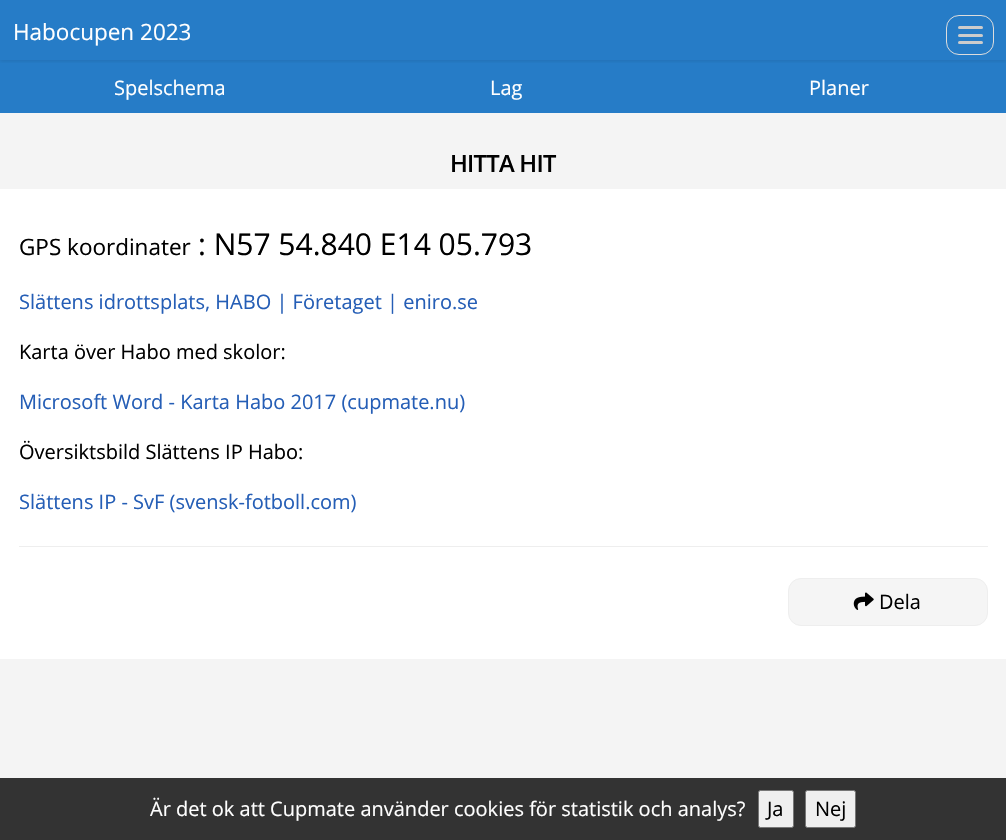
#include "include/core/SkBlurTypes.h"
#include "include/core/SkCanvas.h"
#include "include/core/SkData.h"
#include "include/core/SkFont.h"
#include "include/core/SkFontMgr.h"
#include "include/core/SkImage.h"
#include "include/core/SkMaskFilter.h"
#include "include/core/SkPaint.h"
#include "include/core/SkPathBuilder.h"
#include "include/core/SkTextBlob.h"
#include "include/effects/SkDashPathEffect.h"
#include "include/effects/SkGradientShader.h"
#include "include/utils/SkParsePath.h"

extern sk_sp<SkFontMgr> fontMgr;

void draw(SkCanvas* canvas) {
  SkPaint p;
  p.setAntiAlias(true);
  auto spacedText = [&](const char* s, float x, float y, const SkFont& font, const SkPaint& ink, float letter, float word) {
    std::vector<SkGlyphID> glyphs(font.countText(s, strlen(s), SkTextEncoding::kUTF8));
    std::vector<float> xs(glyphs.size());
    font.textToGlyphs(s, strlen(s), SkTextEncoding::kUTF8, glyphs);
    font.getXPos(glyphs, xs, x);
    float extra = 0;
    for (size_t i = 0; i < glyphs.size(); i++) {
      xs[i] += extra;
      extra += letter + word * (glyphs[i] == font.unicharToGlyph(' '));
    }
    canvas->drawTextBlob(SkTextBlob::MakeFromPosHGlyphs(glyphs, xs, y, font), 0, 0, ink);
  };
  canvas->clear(SkColorSetRGB(244, 244, 244));
  p.setColor(SkColorSetRGB(38, 124, 199));
  canvas->drawRect(SkRect::MakeLTRB(0, 0, 1006, 113), p);
  canvas->save();
  canvas->clipRect(SkRect::MakeLTRB(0, 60, 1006, 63));
  p.setColor(SkColorSetARGB(26, 0, 0, 0));
  p.setMaskFilter(SkMaskFilter::MakeBlur(kNormal_SkBlurStyle, 2));
  canvas->drawRect(SkRect::MakeLTRB(0, 1, 1006, 61), p);
  p.setMaskFilter(nullptr);
  canvas->restore();
  p.setStyle(SkPaint::kStroke_Style);
  p.setStrokeWidth(1);
  p.setColor(SkColorSetRGB(221, 221, 221));
  canvas->drawRoundRect(SkRect::MakeLTRB(946.5f, 15.5f, 993.5f, 54.5f), 12.5f, 12.5f, p);
  p.setStyle(SkPaint::kFill_Style);
  p.setColor(SkColorSetRGB(204, 204, 204));
  canvas->drawRoundRect(SkRect::MakeLTRB(958, 26, 983, 29), 1.5f, 1.5f, p);
  canvas->drawRoundRect(SkRect::MakeLTRB(958, 34, 983, 37), 1.5f, 1.5f, p);
  canvas->drawRoundRect(SkRect::MakeLTRB(958, 41, 983, 44), 1.5f, 1.5f, p);
  p.setColor(SK_ColorWHITE);
  canvas->drawRect(SkRect::MakeLTRB(0, 189, 1006, 659), p);
  p.setColor(SkColorSetRGB(238, 238, 238));
  canvas->drawRect(SkRect::MakeLTRB(19, 546, 988, 547), p);
  p.setColor(SkColorSetRGB(245, 245, 245));
  canvas->drawRoundRect(SkRect::MakeLTRB(788.5f, 578.5f, 987.5f, 625.5f), 12.5f, 12.5f, p);
  p.setStyle(SkPaint::kStroke_Style);
  p.setColor(SkColorSetRGB(238, 238, 238));
  canvas->drawRoundRect(SkRect::MakeLTRB(788.5f, 578.5f, 987.5f, 625.5f), 12.5f, 12.5f, p);
  canvas->drawImageRect(SkImages::DeferredFromEncodedData(SkData::MakeFromFileName("images/1.png")), SkRect::MakeLTRB(853, 592, 874, 610), SkSamplingOptions());
  p.setStyle(SkPaint::kFill_Style);
  p.setColor(SkColorSetRGB(51, 51, 51));
  canvas->drawRect(SkRect::MakeLTRB(0, 778, 1006, 840), p);
  p.setColor(SkColorSetRGB(239, 239, 239));
  canvas->drawRoundRect(SkRect::MakeLTRB(758.5f, 790.5f, 793.5f, 827.5f), 2, 2, p);
  p.setStyle(SkPaint::kStroke_Style);
  p.setColor(SkColorSetRGB(118, 118, 118));
  canvas->drawRoundRect(SkRect::MakeLTRB(758.5f, 790.5f, 793.5f, 827.5f), 2, 2, p);
  p.setStyle(SkPaint::kFill_Style);
  p.setColor(SkColorSetRGB(239, 239, 239));
  canvas->drawRoundRect(SkRect::MakeLTRB(805.5f, 790.5f, 855.5f, 827.5f), 2, 2, p);
  p.setStyle(SkPaint::kStroke_Style);
  p.setColor(SkColorSetRGB(118, 118, 118));
  canvas->drawRoundRect(SkRect::MakeLTRB(805.5f, 790.5f, 855.5f, 827.5f), 2, 2, p);
  SkFont font1(fontMgr->matchFamilyStyle("Open Sans", SkFontStyle::Normal()), 22.5f);
  font1.setSubpixel(true);
  p.setStyle(SkPaint::kFill_Style);
  p.setColor(SK_ColorWHITE);
  canvas->drawString("Habocupen 2023", 13, 40, font1, p);
  SkFont font2(fontMgr->matchFamilyStyle("Open Sans", SkFontStyle::Normal()), 20);
  font2.setSubpixel(true);
  canvas->drawString("Spelschema", 114, 95, font2, p);
  canvas->drawString("Lag", 490, 95, font2, p);
  canvas->drawString("Planer", 809, 95, font2, p);
  SkFont font3(fontMgr->matchFamilyStyle("Open Sans", SkFontStyle(600, SkFontStyle::kNormal_Width, SkFontStyle::kUpright_Slant)), 23.75f);
  font3.setSubpixel(true);
  p.setColor(SK_ColorBLACK);
  spacedText("HITTA HIT", 450, 172, font3, p, -0.75f, 0);
  canvas->drawString("GPS koordinater", 19, 255, font1, p);
  SkFont font4(fontMgr->matchFamilyStyle("Open Sans", SkFontStyle::Normal()), 30);
  font4.setSubpixel(true);
  canvas->drawString(": N57 54.840 E14 05.793", 198, 255, font4, p);
  p.setColor(SkColorSetRGB(37, 94, 182));
  canvas->drawString("Slättens idrottsplats, HABO | Företaget | eniro.se", 19, 309, font2, p);
  p.setColor(SK_ColorBLACK);
  canvas->drawString("Karta över Habo med skolor:", 19, 359, font2, p);
  p.setColor(SkColorSetRGB(37, 94, 182));
  canvas->drawString("Microsoft Word - Karta Habo 2017 (cupmate.nu)", 19, 409, font2, p);
  p.setColor(SK_ColorBLACK);
  canvas->drawString("Översiktsbild Slättens IP Habo:", 19, 459, font2, p);
  p.setColor(SkColorSetRGB(37, 94, 182));
  canvas->drawString("Slättens IP - SvF (svensk-fotboll.com)", 19, 509, font2, p);
  p.setColor(SK_ColorBLACK);
  canvas->drawString("Dela", 879, 609, font2, p);
  p.setColor(SK_ColorWHITE);
  canvas->drawString("Är det ok att Cupmate använder cookies för statistik och analys?", 150, 816, font2, p);
  p.setColor(SK_ColorBLACK);
  canvas->drawString("Ja", 767, 816, font2, p);
  canvas->drawString("Nej", 815, 816, font2, p);
}
